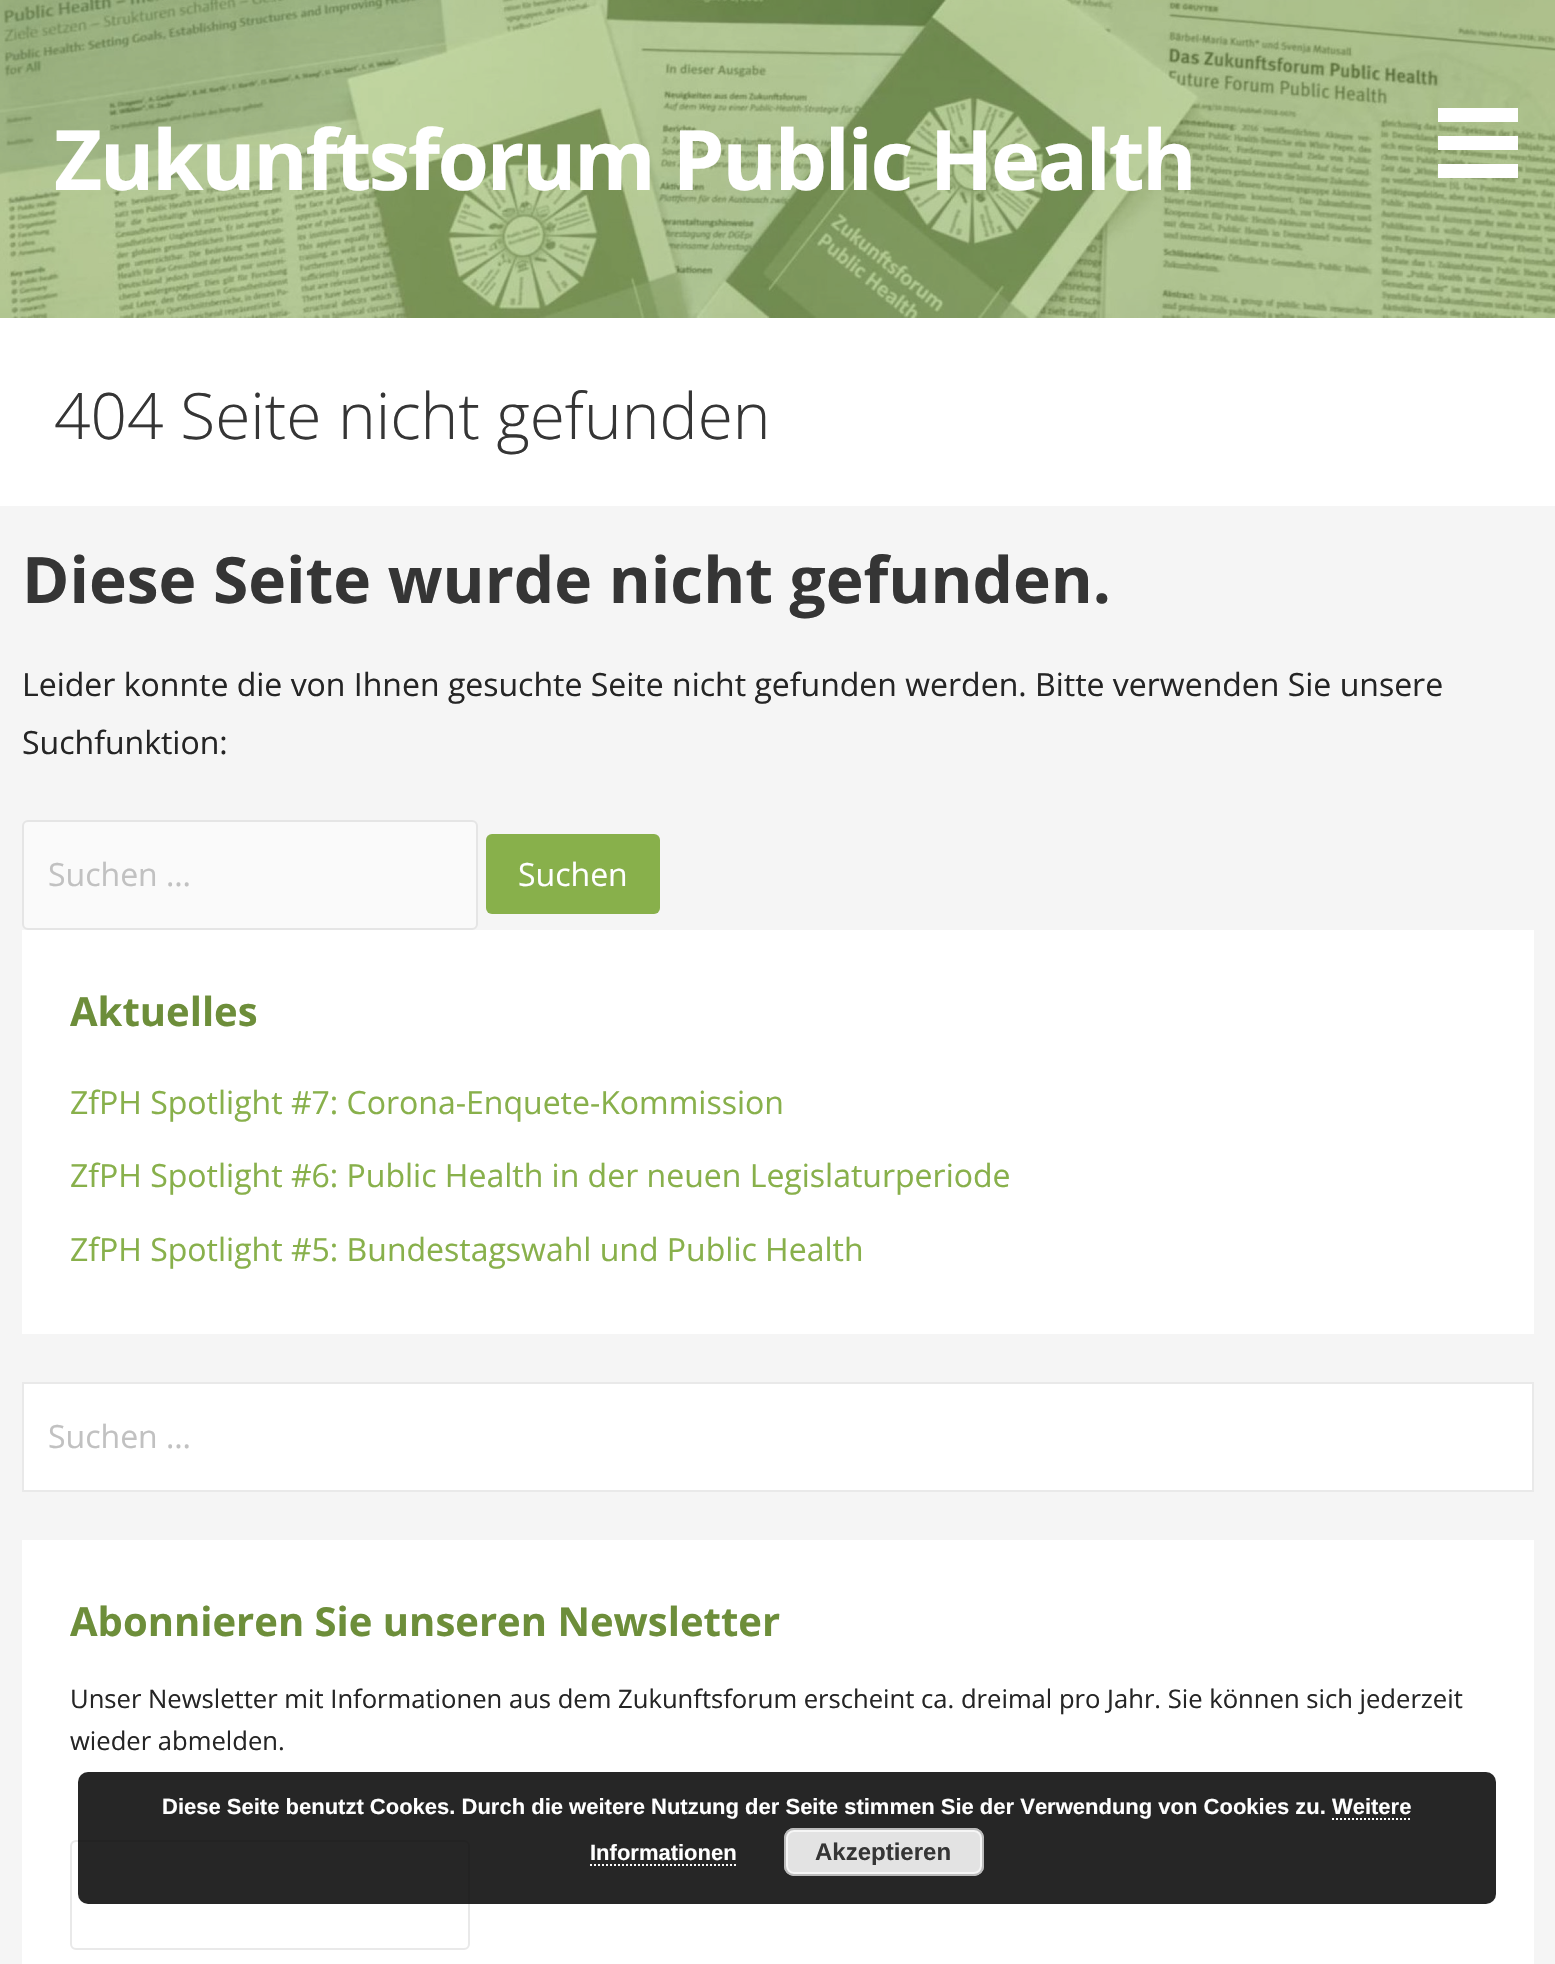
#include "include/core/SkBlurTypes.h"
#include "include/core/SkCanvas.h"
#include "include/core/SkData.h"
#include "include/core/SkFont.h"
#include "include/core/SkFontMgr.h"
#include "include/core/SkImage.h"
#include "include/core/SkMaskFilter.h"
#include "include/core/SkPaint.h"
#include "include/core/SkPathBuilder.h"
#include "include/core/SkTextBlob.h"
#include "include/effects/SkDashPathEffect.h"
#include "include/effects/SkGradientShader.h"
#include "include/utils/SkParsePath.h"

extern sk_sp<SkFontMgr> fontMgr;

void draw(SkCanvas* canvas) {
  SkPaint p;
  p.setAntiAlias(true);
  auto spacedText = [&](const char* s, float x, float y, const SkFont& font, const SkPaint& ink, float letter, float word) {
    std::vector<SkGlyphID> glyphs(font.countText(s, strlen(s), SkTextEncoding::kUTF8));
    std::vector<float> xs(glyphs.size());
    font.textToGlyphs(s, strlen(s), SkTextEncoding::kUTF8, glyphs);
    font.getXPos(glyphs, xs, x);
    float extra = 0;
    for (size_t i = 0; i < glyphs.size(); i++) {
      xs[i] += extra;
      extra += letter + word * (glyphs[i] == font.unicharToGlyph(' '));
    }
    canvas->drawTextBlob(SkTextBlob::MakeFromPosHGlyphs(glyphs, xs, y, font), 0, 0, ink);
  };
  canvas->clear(SkColorSetRGB(245, 245, 245));
  canvas->drawImageRect(SkImages::DeferredFromEncodedData(SkData::MakeFromFileName("images/1.png")), SkRect::MakeLTRB(0, 0, 1555, 318), SkSamplingOptions());
  p.setColor(SK_ColorWHITE);
  canvas->drawRect(SkRect::MakeLTRB(1438, 108, 1518, 122), p);
  canvas->drawRect(SkRect::MakeLTRB(1438, 136, 1518, 150), p);
  canvas->drawRect(SkRect::MakeLTRB(1438, 164, 1518, 178), p);
  canvas->drawRect(SkRect::MakeLTRB(0, 318, 1555, 506), p);
  p.setColor(SkColorSetRGB(250, 250, 250));
  canvas->drawRoundRect(SkRect::MakeLTRB(23, 821, 477, 929), 5, 5, p);
  p.setStyle(SkPaint::kStroke_Style);
  p.setStrokeWidth(2);
  p.setColor(SkColorSetRGB(229, 229, 229));
  canvas->drawRoundRect(SkRect::MakeLTRB(23, 821, 477, 929), 5, 5, p);
  p.setStyle(SkPaint::kFill_Style);
  p.setColor(SkColorSetRGB(136, 176, 75));
  canvas->drawRoundRect(SkRect::MakeLTRB(486, 834, 660, 914), 6, 6, p);
  p.setColor(SK_ColorWHITE);
  canvas->drawRect(SkRect::MakeLTRB(22, 930, 1534, 1334), p);
  canvas->drawRect(SkRect::MakeLTRB(23, 1383, 1533, 1491), p);
  p.setStyle(SkPaint::kStroke_Style);
  p.setColor(SkColorSetRGB(233, 233, 233));
  canvas->drawRect(SkRect::MakeLTRB(23, 1383, 1533, 1491), p);
  p.setStyle(SkPaint::kFill_Style);
  p.setColor(SK_ColorWHITE);
  canvas->drawRect(SkRect::MakeLTRB(22, 1540, 1534, 1964), p);
  p.setStyle(SkPaint::kStroke_Style);
  p.setColor(SkColorSetRGB(233, 233, 233));
  canvas->drawRoundRect(SkRect::MakeLTRB(71, 1841, 469, 1949), 5, 5, p);
  p.setStyle(SkPaint::kFill_Style);
  p.setColor(SkColorSetARGB(217, 0, 0, 0));
  canvas->drawRoundRect(SkRect::MakeLTRB(78, 1772, 1496, 1904), 10, 10, p);
  p.setStyle(SkPaint::kStroke_Style);
  p.setColor(SK_ColorWHITE);
  p.setPathEffect(SkDashPathEffect::Make({{2, 2}}, 0));
  canvas->drawPath(SkPathBuilder().moveTo(1332, 1819).lineTo(1412, 1819).detach(), p);
  p.setPathEffect(nullptr);
  p.setPathEffect(SkDashPathEffect::Make({{2, 2}}, 0));
  canvas->drawPath(SkPathBuilder().moveTo(590, 1865).lineTo(738, 1865).detach(), p);
  p.setPathEffect(nullptr);
  p.setStyle(SkPaint::kFill_Style);
  p.setColor(SkColorSetRGB(227, 227, 227));
  canvas->drawRoundRect(SkRect::MakeLTRB(784, 1828, 984, 1876), 10, 10, p);
  p.setStyle(SkPaint::kStroke_Style);
  p.setColor(SkColorSetRGB(246, 246, 246));
  canvas->drawRoundRect(SkRect::MakeLTRB(787, 1831, 981, 1873), 7, 7, p);
  p.setColor(SkColorSetRGB(187, 187, 187));
  canvas->drawRoundRect(SkRect::MakeLTRB(785, 1829, 983, 1875), 9, 9, p);
  SkFont font1(fontMgr->matchFamilyStyle("Open Sans", SkFontStyle::Bold()), 83.25f);
  font1.setSubpixel(true);
  p.setStyle(SkPaint::kFill_Style);
  p.setColor(SK_ColorWHITE);
  spacedText("Zukunftsforum Public Health", 54, 190, font1, p, -2.5f, 0);
  SkFont font2(fontMgr->matchFamilyStyle("Open Sans", SkFontStyle(300, SkFontStyle::kNormal_Width, SkFontStyle::kUpright_Slant)), 64);
  font2.setSubpixel(true);
  p.setColor(SkColorSetRGB(53, 53, 53));
  canvas->drawString("404 Seite nicht gefunden", 54, 439, font2, p);
  SkFont font3(fontMgr->matchFamilyStyle("Open Sans", SkFontStyle::Bold()), 64);
  font3.setSubpixel(true);
  canvas->drawString("Diese Seite wurde nicht gefunden.", 22, 603, font3, p);
  SkFont font4(fontMgr->matchFamilyStyle("Open Sans", SkFontStyle::Normal()), 32);
  font4.setSubpixel(true);
  p.setColor(SkColorSetRGB(37, 37, 37));
  canvas->drawString("Leider konnte die von Ihnen gesuchte Seite nicht gefunden werden. Bitte verwenden Sie unsere", 22, 696, font4, p);
  canvas->drawString("Suchfunktion:", 22, 754, font4, p);
  p.setColor(SkColorSetRGB(193, 193, 193));
  canvas->drawString("Suchen …", 48, 886, font4, p);
  p.setColor(SK_ColorWHITE);
  canvas->drawString("Suchen", 518, 886, font4, p);
  SkFont font5(fontMgr->matchFamilyStyle("Open Sans", SkFontStyle::Bold()), 40);
  font5.setSubpixel(true);
  p.setColor(SkColorSetRGB(109, 142, 58));
  canvas->drawString("Aktuelles", 70, 1026, font5, p);
  p.setColor(SkColorSetRGB(136, 176, 75));
  canvas->drawString("ZfPH Spotlight #7: Corona-Enquete-Kommission", 70, 1114, font4, p);
  canvas->drawString("ZfPH Spotlight #6: Public Health in der neuen Legislaturperiode", 70, 1187, font4, p);
  canvas->drawString("ZfPH Spotlight #5: Bundestagswahl und Public Health", 70, 1261, font4, p);
  p.setColor(SkColorSetRGB(193, 193, 193));
  canvas->drawString("Suchen …", 48, 1448, font4, p);
  p.setColor(SkColorSetRGB(109, 142, 58));
  canvas->drawString("Abonnieren Sie unseren Newsletter", 70, 1636, font5, p);
  SkFont font6(fontMgr->matchFamilyStyle("Open Sans", SkFontStyle::Normal()), 25.6f);
  font6.setSubpixel(true);
  p.setColor(SkColorSetRGB(37, 37, 37));
  canvas->drawString("Unser Newsletter mit Informationen aus dem Zukunftsforum erscheint ca. dreimal pro Jahr. Sie können sich jederzeit", 70, 1708, font6, p);
  canvas->drawString("wieder abmelden.", 70, 1750, font6, p);
  SkFont font7(fontMgr->matchFamilyStyle("Liberation Sans", SkFontStyle::Bold()), 22);
  font7.setSubpixel(true);
  p.setColor(SK_ColorWHITE);
  canvas->drawString("Diese Seite benutzt Cookes. Durch die weitere Nutzung der Seite stimmen Sie der Verwendung von Cookies zu. Weitere", 162, 1814, font7, p);
  canvas->drawString("Informationen", 590, 1860, font7, p);
  SkFont font8(fontMgr->matchFamilyStyle("Liberation Sans", SkFontStyle::Bold()), 24);
  font8.setSubpixel(true);
  p.setColor(SkColorSetRGB(53, 53, 53));
  canvas->drawString("Akzeptieren", 815, 1860, font8, p);
}
